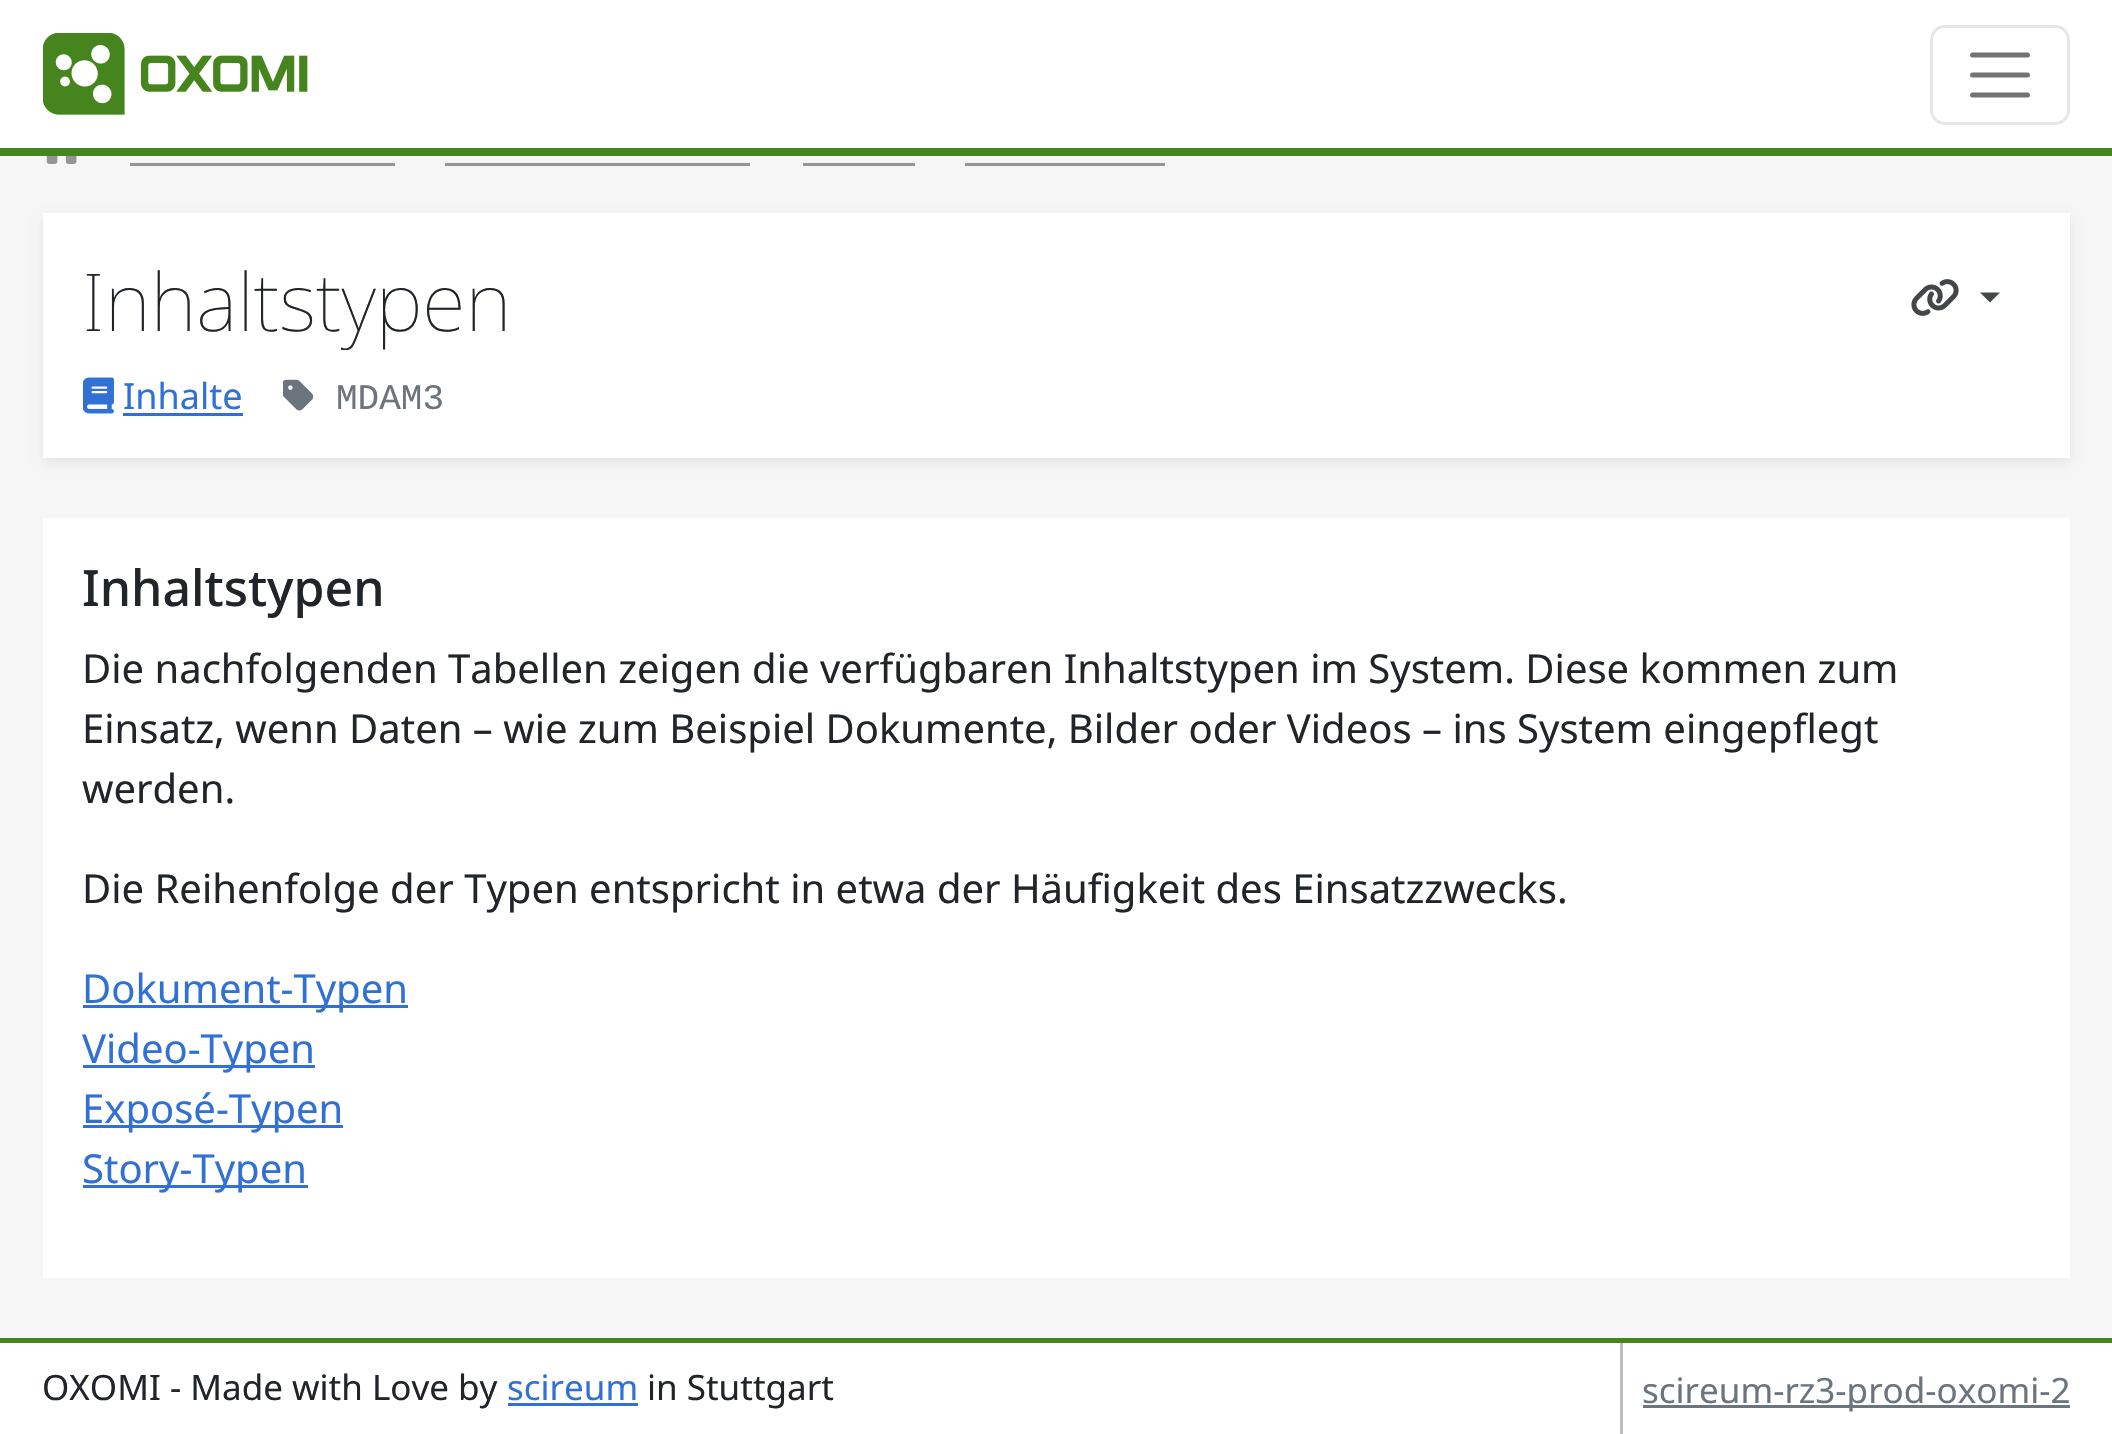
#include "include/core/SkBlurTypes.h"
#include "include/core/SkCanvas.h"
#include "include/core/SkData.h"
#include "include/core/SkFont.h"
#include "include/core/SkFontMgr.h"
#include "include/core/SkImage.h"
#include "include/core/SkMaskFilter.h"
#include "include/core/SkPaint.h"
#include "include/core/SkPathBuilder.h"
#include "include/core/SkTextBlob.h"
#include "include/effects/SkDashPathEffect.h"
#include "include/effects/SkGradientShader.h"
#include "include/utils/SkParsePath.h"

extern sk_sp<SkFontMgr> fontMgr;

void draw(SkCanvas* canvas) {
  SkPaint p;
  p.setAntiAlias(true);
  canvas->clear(SkColorSetRGB(245, 246, 245));
  p.setColor(SK_ColorWHITE);
  canvas->drawRect(SkRect::MakeLTRB(0, 0, 2112, 148), p);
  p.setColor(SkColorSetRGB(70, 133, 30));
  canvas->drawRect(SkRect::MakeLTRB(0, 148, 2112, 156), p);
  canvas->drawImageRect(SkImages::DeferredFromEncodedData(SkData::MakeFromFileName("images/1.png")), SkRect::MakeLTRB(43, 33, 308, 115), SkSamplingOptions());
  p.setStyle(SkPaint::kStroke_Style);
  p.setStrokeWidth(3);
  p.setColor(SkColorSetRGB(230, 230, 230));
  canvas->drawRoundRect(SkRect::MakeLTRB(1931.5f, 26.5f, 2068.5f, 123.5f), 13.5f, 13.5f, p);
  p.setStrokeWidth(5);
  p.setStrokeCap(SkPaint::kRound_Cap);
  p.setColor(SkColorSetRGB(115, 115, 115));
  canvas->drawPath(SkPathBuilder().moveTo(1972.5f, 55).lineTo(2027.5f, 55).moveTo(1972.5f, 75).lineTo(2027.5f, 75).moveTo(1972.5f, 95).lineTo(2027.5f, 95).detach(), p);
  canvas->drawImageRect(SkImages::DeferredFromEncodedData(SkData::MakeFromFileName("images/2.png")), SkRect::MakeLTRB(46, 156, 77, 164), SkSamplingOptions());
  p.setStyle(SkPaint::kFill_Style);
  p.setColor(SkColorSetRGB(148, 149, 152));
  canvas->drawRect(SkRect::MakeLTRB(130, 163, 395, 166), p);
  canvas->drawRect(SkRect::MakeLTRB(445, 163, 750, 166), p);
  canvas->drawRect(SkRect::MakeLTRB(803, 163, 915, 166), p);
  canvas->drawRect(SkRect::MakeLTRB(965, 163, 1165, 166), p);
  p.setColor(SkColorSetARGB(18, 0, 0, 0));
  p.setMaskFilter(SkMaskFilter::MakeBlur(kNormal_SkBlurStyle, 5));
  canvas->drawRect(SkRect::MakeLTRB(43, 218, 2070, 463), p);
  p.setMaskFilter(nullptr);
  p.setColor(SK_ColorWHITE);
  canvas->drawRect(SkRect::MakeLTRB(43, 213, 2070, 458), p);
  canvas->drawImageRect(SkImages::DeferredFromEncodedData(SkData::MakeFromFileName("images/3.png")), SkRect::MakeLTRB(1911, 279, 1959, 316), SkSamplingOptions());
  p.setColor(SkColorSetRGB(67, 71, 74));
  canvas->drawPath(SkPathBuilder().moveTo(1980, 292.5f).lineTo(2000, 292.5f).lineTo(1990, 302.5f).close().detach(), p);
  canvas->drawImageRect(SkImages::DeferredFromEncodedData(SkData::MakeFromFileName("images/4.png")), SkRect::MakeLTRB(83, 377, 114, 414), SkSamplingOptions());
  p.setColor(SkColorSetRGB(49, 113, 213));
  canvas->drawRect(SkRect::MakeLTRB(123, 413, 243, 416), p);
  canvas->drawImageRect(SkImages::DeferredFromEncodedData(SkData::MakeFromFileName("images/5.png")), SkRect::MakeLTRB(283, 379, 314, 411), SkSamplingOptions());
  p.setColor(SK_ColorWHITE);
  canvas->drawRect(SkRect::MakeLTRB(43, 518, 2070, 1278), p);
  p.setColor(SkColorSetRGB(49, 113, 213));
  canvas->drawRect(SkRect::MakeLTRB(83, 1005, 408, 1008), p);
  canvas->drawRect(SkRect::MakeLTRB(83, 1065, 315, 1068), p);
  canvas->drawRect(SkRect::MakeLTRB(83, 1125, 343, 1128), p);
  canvas->drawRect(SkRect::MakeLTRB(83, 1185, 308, 1188), p);
  p.setColor(SK_ColorWHITE);
  canvas->drawRect(SkRect::MakeLTRB(0, 1343, 2112, 1434), p);
  p.setColor(SkColorSetRGB(70, 133, 30));
  canvas->drawRect(SkRect::MakeLTRB(0, 1338, 2112, 1343), p);
  p.setColor(SkColorSetRGB(49, 113, 213));
  canvas->drawRect(SkRect::MakeLTRB(508, 1403, 638, 1406), p);
  p.setColor(SkColorSetRGB(191, 191, 191));
  canvas->drawRect(SkRect::MakeLTRB(1620, 1343, 1623, 1434), p);
  p.setColor(SkColorSetRGB(108, 117, 125));
  canvas->drawRect(SkRect::MakeLTRB(1643, 1405, 2070, 1408), p);
  canvas->save();
  canvas->clipRect(SkRect::MakeLTRB(83, 253, 513, 350));
  SkFont font1(fontMgr->matchFamilyStyle("Noto Sans", SkFontStyle(100, SkFontStyle::kNormal_Width, SkFontStyle::kUpright_Slant)), 80);
  font1.setSubpixel(true);
  p.setColor(SkColorSetRGB(33, 37, 41));
  canvas->drawString("Inhaltstypen", 82, 331, font1, p);
  canvas->restore();
  SkFont font2(fontMgr->matchFamilyStyle("Noto Sans", SkFontStyle::Normal()), 36);
  font2.setSubpixel(true);
  p.setColor(SkColorSetRGB(49, 113, 213));
  canvas->drawString("Inhalte", 123, 409, font2, p);
  SkFont font3(fontMgr->matchFamilyStyle("Liberation Mono", SkFontStyle::Normal()), 36);
  font3.setSubpixel(true);
  p.setColor(SkColorSetRGB(108, 117, 125));
  canvas->drawString("MDAM3", 336, 409, font3, p);
  SkFont font4(fontMgr->matchFamilyStyle("Noto Sans", SkFontStyle(500, SkFontStyle::kNormal_Width, SkFontStyle::kUpright_Slant)), 50);
  font4.setSubpixel(true);
  p.setColor(SkColorSetRGB(33, 37, 41));
  canvas->drawString("Inhaltstypen", 82, 606, font4, p);
  SkFont font5(fontMgr->matchFamilyStyle("Noto Sans", SkFontStyle::Normal()), 40);
  font5.setSubpixel(true);
  canvas->drawString("Die nachfolgenden Tabellen zeigen die verfügbaren Inhaltstypen im System. Diese kommen zum", 82, 683, font5, p);
  canvas->drawString("Einsatz, wenn Daten – wie zum Beispiel Dokumente, Bilder oder Videos – ins System eingepflegt", 82, 743, font5, p);
  canvas->drawString("werden.", 82, 803, font5, p);
  canvas->drawString("Die Reihenfolge der Typen entspricht in etwa der Häufigkeit des Einsatzzwecks.", 82, 903, font5, p);
  p.setColor(SkColorSetRGB(49, 113, 213));
  canvas->drawString("Dokument-Typen", 82, 1003, font5, p);
  canvas->drawString("Video-Typen", 82, 1063, font5, p);
  canvas->drawString("Exposé-Typen", 82, 1123, font5, p);
  canvas->drawString("Story-Typen", 82, 1183, font5, p);
  SkFont font6(fontMgr->matchFamilyStyle("Noto Sans", SkFontStyle::Normal()), 35);
  font6.setSubpixel(true);
  p.setColor(SkColorSetRGB(33, 37, 41));
  canvas->drawString("OXOMI - Made with Love by", 42, 1400, font6, p);
  p.setColor(SkColorSetRGB(49, 113, 213));
  canvas->drawString("scireum", 507, 1400, font6, p);
  p.setColor(SkColorSetRGB(33, 37, 41));
  canvas->drawString("in Stuttgart", 647, 1400, font6, p);
  p.setColor(SkColorSetRGB(108, 117, 125));
  canvas->drawString("scireum-rz3-prod-oxomi-2", 1642, 1403, font6, p);
}
